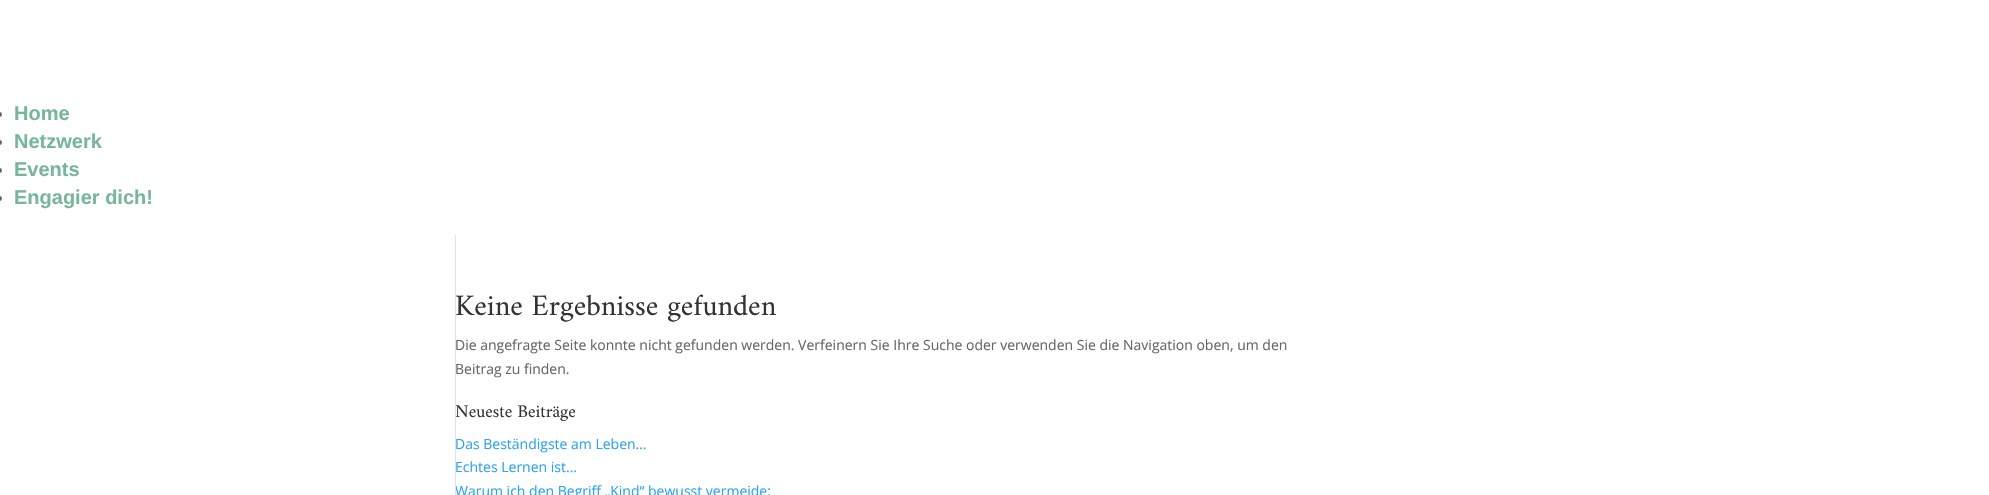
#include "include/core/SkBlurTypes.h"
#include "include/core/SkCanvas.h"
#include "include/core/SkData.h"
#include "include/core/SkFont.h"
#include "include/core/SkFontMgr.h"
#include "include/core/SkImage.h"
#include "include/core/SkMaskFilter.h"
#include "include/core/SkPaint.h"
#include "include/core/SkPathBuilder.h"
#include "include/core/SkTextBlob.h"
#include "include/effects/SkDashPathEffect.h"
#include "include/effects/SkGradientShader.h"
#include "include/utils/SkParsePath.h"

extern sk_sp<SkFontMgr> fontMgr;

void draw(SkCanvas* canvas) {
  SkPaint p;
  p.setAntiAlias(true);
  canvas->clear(SK_ColorWHITE);
  p.setColor(SkColorSetRGB(102, 102, 102));
  canvas->drawCircle(-0.5f, 114.5f, 2.5f, p);
  canvas->drawCircle(-0.5f, 142.5f, 2.5f, p);
  canvas->drawCircle(-0.5f, 170.5f, 2.5f, p);
  canvas->drawCircle(-0.5f, 198.5f, 2.5f, p);
  SkFont font1(fontMgr->matchFamilyStyle("Liberation Sans", SkFontStyle::Bold()), 20);
  font1.setSubpixel(true);
  p.setColor(SkColorSetRGB(119, 182, 155));
  canvas->drawString("Home", 14, 120, font1, p);
  canvas->drawString("Netzwerk", 14, 148, font1, p);
  canvas->drawString("Events", 14, 176, font1, p);
  canvas->drawString("Engagier dich!", 14, 204, font1, p);
  SkFont font2(fontMgr->matchFamilyStyle("Amiri", SkFontStyle::Normal()), 30);
  font2.setSubpixel(true);
  p.setColor(SkColorSetRGB(51, 51, 51));
  canvas->drawString("Keine Ergebnisse gefunden", 455, 315, font2, p);
  SkFont font3(fontMgr->matchFamilyStyle("Open Sans", SkFontStyle::Normal()), 14);
  font3.setSubpixel(true);
  p.setColor(SkColorSetRGB(102, 102, 102));
  canvas->drawString("Die angefragte Seite konnte nicht gefunden werden. Verfeinern Sie Ihre Suche oder verwenden Sie die Navigation oben, um den", 455, 350, font3, p);
  canvas->drawString("Beitrag zu finden.", 455, 374, font3, p);
  SkFont font4(fontMgr->matchFamilyStyle("Amiri", SkFontStyle::Normal()), 18);
  font4.setSubpixel(true);
  p.setColor(SkColorSetRGB(51, 51, 51));
  canvas->drawString("Neueste Beiträge", 455, 417, font4, p);
  p.setColor(SkColorSetRGB(46, 163, 242));
  canvas->drawString("Das Beständigste am Leben…", 455, 449, font3, p);
  canvas->drawString("Echtes Lernen ist…", 455, 472, font3, p);
  canvas->drawString("Warum ich den Begriff „Kind“ bewusst vermeide:", 455, 496, font3, p);
  p.setColor(SkColorSetRGB(226, 226, 226));
  canvas->drawRect(SkRect::MakeLTRB(455, 235, 456, 495), p);
}
